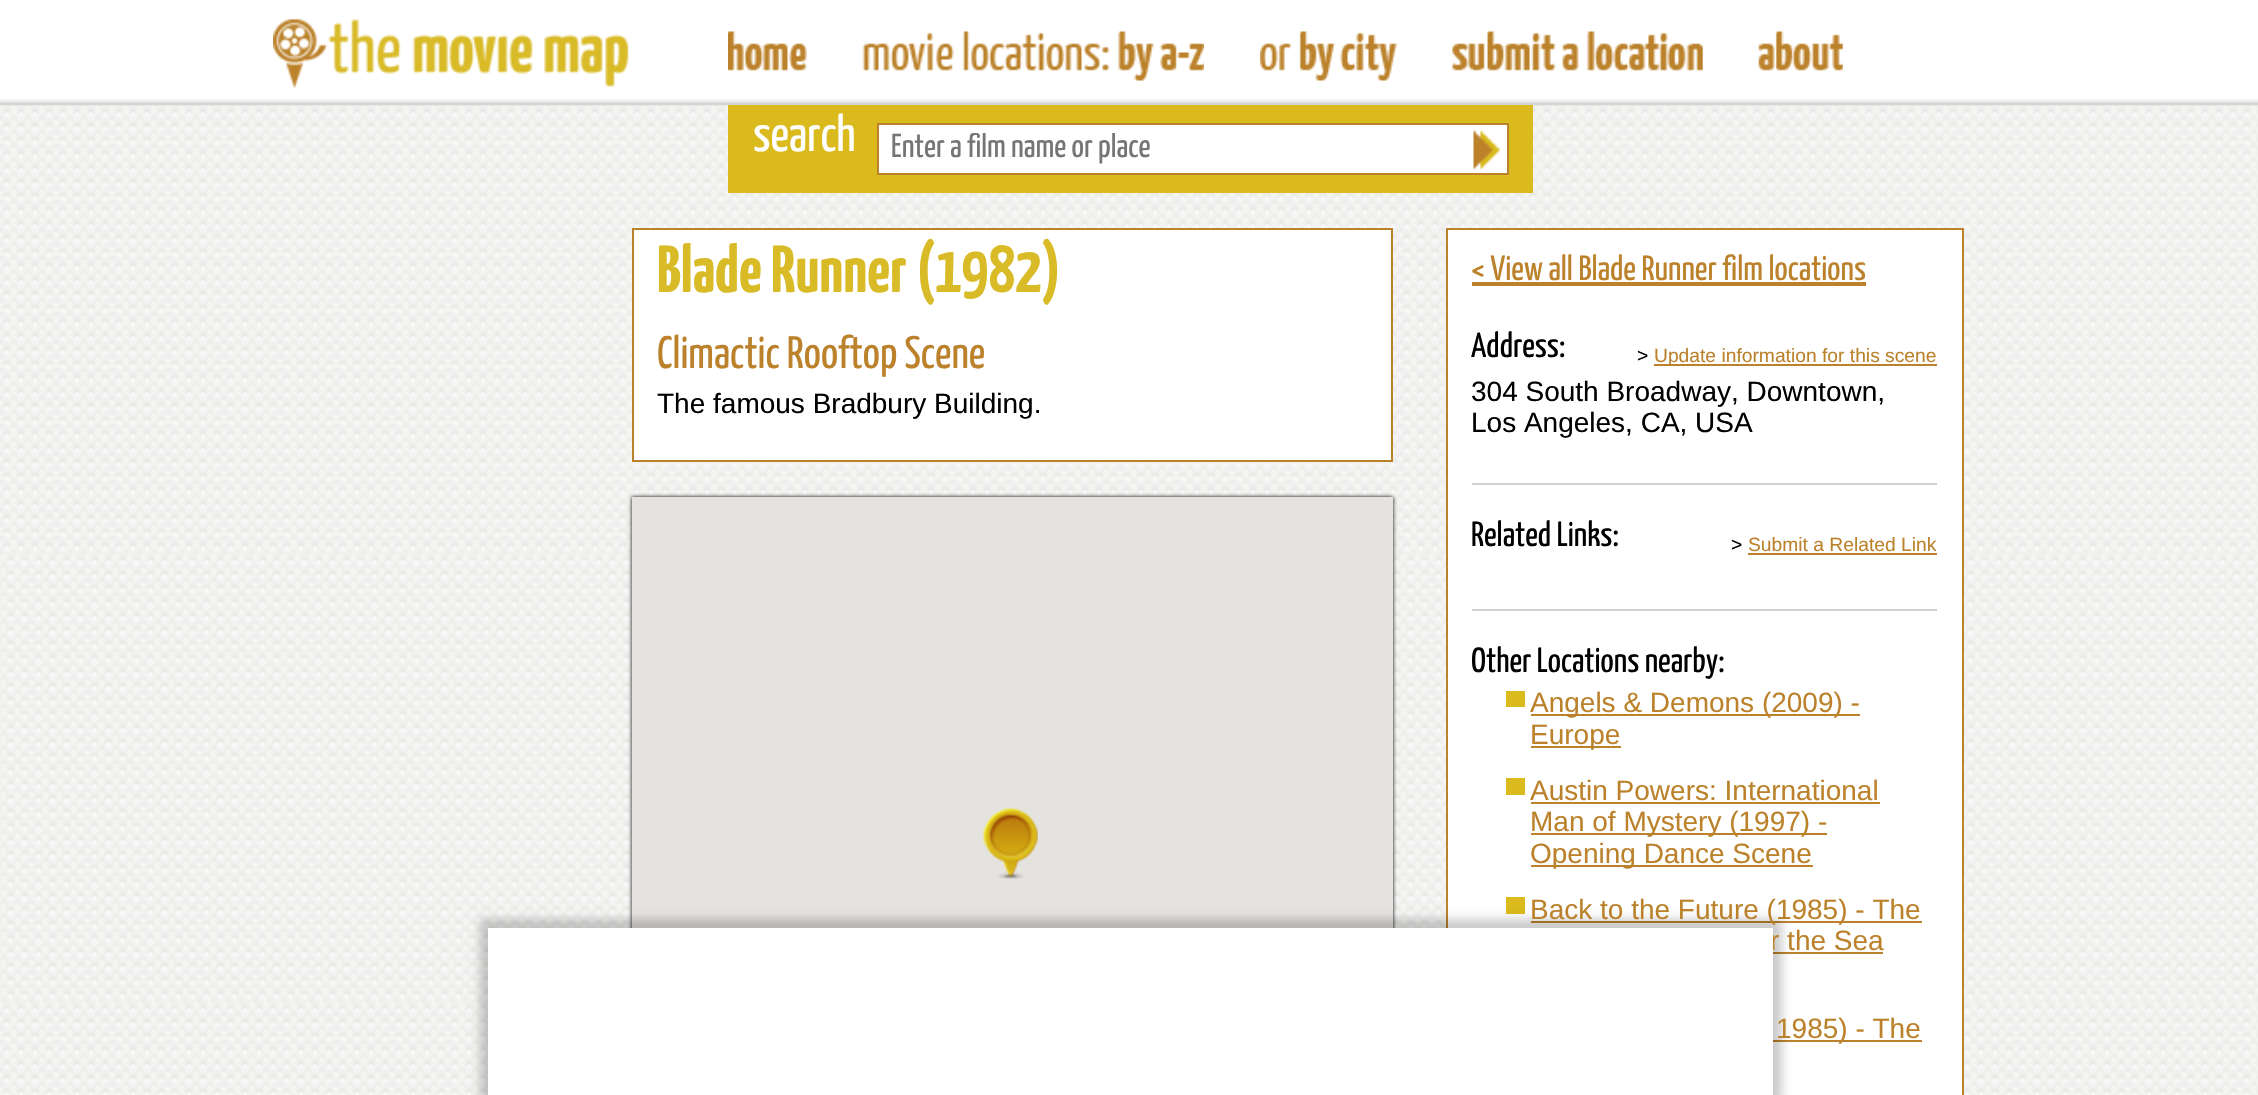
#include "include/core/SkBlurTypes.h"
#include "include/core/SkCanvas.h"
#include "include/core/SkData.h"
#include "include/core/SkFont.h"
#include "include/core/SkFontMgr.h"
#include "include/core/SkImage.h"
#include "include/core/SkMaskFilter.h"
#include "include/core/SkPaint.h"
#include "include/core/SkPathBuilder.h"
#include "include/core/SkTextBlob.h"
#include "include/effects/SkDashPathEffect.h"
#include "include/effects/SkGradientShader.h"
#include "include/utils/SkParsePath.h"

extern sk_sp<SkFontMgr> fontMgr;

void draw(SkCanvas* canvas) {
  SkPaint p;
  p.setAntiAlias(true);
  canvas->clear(SK_ColorWHITE);
  canvas->drawImageRect(SkImages::DeferredFromEncodedData(SkData::MakeFromFileName("images/1.png")), SkRect::MakeLTRB(0, 99, 2258, 1095), SkSamplingOptions());
  canvas->drawImageRect(SkImages::DeferredFromEncodedData(SkData::MakeFromFileName("images/2.png")), SkRect::MakeLTRB(273, 18, 629, 88), SkSamplingOptions());
  canvas->drawImageRect(SkImages::DeferredFromEncodedData(SkData::MakeFromFileName("images/3.png")), SkRect::MakeLTRB(728, 31, 807, 71), SkSamplingOptions());
  canvas->drawImageRect(SkImages::DeferredFromEncodedData(SkData::MakeFromFileName("images/4.png")), SkRect::MakeLTRB(862, 31, 1204, 81), SkSamplingOptions());
  canvas->drawImageRect(SkImages::DeferredFromEncodedData(SkData::MakeFromFileName("images/5.png")), SkRect::MakeLTRB(1260, 31, 1397, 81), SkSamplingOptions());
  canvas->drawImageRect(SkImages::DeferredFromEncodedData(SkData::MakeFromFileName("images/6.png")), SkRect::MakeLTRB(1452, 31, 1703, 71), SkSamplingOptions());
  canvas->drawImageRect(SkImages::DeferredFromEncodedData(SkData::MakeFromFileName("images/7.png")), SkRect::MakeLTRB(1758, 31, 1843, 71), SkSamplingOptions());
  p.setColor(SkColorSetRGB(218, 186, 28));
  canvas->drawRect(SkRect::MakeLTRB(728, 105, 1533, 193), p);
  p.setColor(SK_ColorWHITE);
  canvas->drawRect(SkRect::MakeLTRB(878, 124, 1508, 174), p);
  p.setStyle(SkPaint::kStroke_Style);
  p.setStrokeWidth(2);
  p.setColor(SkColorSetRGB(188, 130, 43));
  canvas->drawRect(SkRect::MakeLTRB(878, 124, 1508, 174), p);
  canvas->drawImageRect(SkImages::DeferredFromEncodedData(SkData::MakeFromFileName("images/8.png")), SkRect::MakeLTRB(1473, 129, 1500, 170), SkSamplingOptions());
  p.setStyle(SkPaint::kFill_Style);
  p.setColor(SK_ColorWHITE);
  canvas->drawRect(SkRect::MakeLTRB(633, 229, 1392, 461), p);
  p.setStyle(SkPaint::kStroke_Style);
  p.setColor(SkColorSetRGB(188, 130, 43));
  canvas->drawRect(SkRect::MakeLTRB(633, 229, 1392, 461), p);
  p.setStyle(SkPaint::kFill_Style);
  p.setColor(SK_ColorBLACK);
  p.setMaskFilter(SkMaskFilter::MakeBlur(kNormal_SkBlurStyle, 2));
  canvas->drawRect(SkRect::MakeLTRB(632, 497, 1393, 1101), p);
  p.setMaskFilter(nullptr);
  p.setColor(SkColorSetRGB(229, 227, 223));
  canvas->drawRect(SkRect::MakeLTRB(632, 497, 1393, 928), p);
  canvas->drawImageRect(SkImages::DeferredFromEncodedData(SkData::MakeFromFileName("images/9.png")), SkRect::MakeLTRB(983, 808, 1038, 879), SkSamplingOptions());
  p.setColor(SK_ColorWHITE);
  canvas->drawRect(SkRect::MakeLTRB(1447, 229, 1963, 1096), p);
  p.setStyle(SkPaint::kStroke_Style);
  p.setColor(SkColorSetRGB(188, 130, 43));
  canvas->drawRect(SkRect::MakeLTRB(1447, 229, 1963, 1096), p);
  p.setStyle(SkPaint::kFill_Style);
  canvas->drawRect(SkRect::MakeLTRB(1472, 282, 1866, 286), p);
  canvas->drawRect(SkRect::MakeLTRB(1654, 364, 1937, 366), p);
  p.setColor(SkColorSetRGB(209, 209, 209));
  canvas->drawRect(SkRect::MakeLTRB(1472, 483, 1937, 485), p);
  p.setColor(SkColorSetRGB(188, 130, 43));
  canvas->drawRect(SkRect::MakeLTRB(1748, 553, 1937, 555), p);
  p.setColor(SkColorSetRGB(209, 209, 209));
  canvas->drawRect(SkRect::MakeLTRB(1472, 609, 1937, 611), p);
  p.setColor(SkColorSetRGB(218, 186, 28));
  canvas->drawRect(SkRect::MakeLTRB(1506, 691, 1525, 707), p);
  p.setColor(SkColorSetRGB(188, 130, 43));
  canvas->drawRect(SkRect::MakeLTRB(1531, 714, 1860, 716), p);
  canvas->drawRect(SkRect::MakeLTRB(1531, 746, 1621, 748), p);
  p.setColor(SkColorSetRGB(218, 186, 28));
  canvas->drawRect(SkRect::MakeLTRB(1506, 778, 1525, 795), p);
  p.setColor(SkColorSetRGB(188, 130, 43));
  canvas->drawRect(SkRect::MakeLTRB(1531, 802, 1880, 804), p);
  canvas->drawRect(SkRect::MakeLTRB(1531, 833, 1827, 835), p);
  canvas->drawRect(SkRect::MakeLTRB(1531, 865, 1813, 867), p);
  p.setColor(SkColorSetRGB(218, 186, 28));
  canvas->drawRect(SkRect::MakeLTRB(1506, 897, 1525, 914), p);
  p.setColor(SkColorSetRGB(188, 130, 43));
  canvas->drawRect(SkRect::MakeLTRB(1531, 921, 1922, 923), p);
  canvas->drawRect(SkRect::MakeLTRB(1773, 952, 1883, 954), p);
  canvas->drawRect(SkRect::MakeLTRB(1773, 1040, 1922, 1042), p);
  p.setColor(SkColorSetARGB(51, 0, 0, 0));
  p.setMaskFilter(SkMaskFilter::MakeBlur(kNormal_SkBlurStyle, 4.5f));
  canvas->drawRect(SkRect::MakeLTRB(480, 919, 1782, 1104), p);
  p.setMaskFilter(nullptr);
  SkFont font1(fontMgr->matchFamilyStyle("Yanone Kaffeesatz", SkFontStyle::Normal()), 51);
  font1.setSubpixel(true);
  p.setColor(SK_ColorWHITE);
  canvas->drawString("search", 753, 151, font1, p);
  canvas->save();
  canvas->clipRect(SkRect::MakeLTRB(891, 133, 1495, 166));
  SkFont font2(fontMgr->matchFamilyStyle("Yanone Kaffeesatz", SkFontStyle::Normal()), 33.25f);
  font2.setSubpixel(true);
  p.setColor(SkColorSetRGB(117, 117, 117));
  canvas->drawString("Enter a film name or place", 891, 157, font2, p);
  canvas->restore();
  SkFont font3(fontMgr->matchFamilyStyle("Yanone Kaffeesatz", SkFontStyle::Bold()), 66.5f);
  font3.setSubpixel(true);
  p.setColor(SkColorSetRGB(217, 186, 39));
  canvas->drawString("Blade Runner (1982)", 657, 292, font3, p);
  SkFont font4(fontMgr->matchFamilyStyle("Yanone Kaffeesatz", SkFontStyle::Normal()), 45.5f);
  font4.setSubpixel(true);
  p.setColor(SkColorSetRGB(188, 130, 43));
  canvas->drawString("Climactic Rooftop Scene", 657, 368, font4, p);
  SkFont font5(fontMgr->matchFamilyStyle("Liberation Sans", SkFontStyle::Normal()), 28);
  font5.setSubpixel(true);
  p.setColor(SK_ColorBLACK);
  canvas->drawString("The famous Bradbury Building.", 657, 413, font5, p);
  SkFont font6(fontMgr->matchFamilyStyle("Yanone Kaffeesatz", SkFontStyle::Normal()), 35);
  font6.setSubpixel(true);
  p.setColor(SkColorSetRGB(188, 130, 43));
  canvas->drawString("< View all Blade Runner film locations", 1471, 280, font6, p);
  p.setColor(SK_ColorBLACK);
  canvas->drawString("Address:", 1471, 357, font6, p);
  SkFont font7(fontMgr->matchFamilyStyle("Liberation Sans", SkFontStyle::Normal()), 19.25f);
  font7.setSubpixel(true);
  canvas->drawString(">", 1637, 362, font7, p);
  p.setColor(SkColorSetRGB(188, 130, 43));
  canvas->drawString("Update information for this scene", 1654, 362, font7, p);
  p.setColor(SK_ColorBLACK);
  canvas->drawString("304 South Broadway, Downtown,", 1471, 401, font5, p);
  canvas->drawString("Los Angeles, CA, USA", 1471, 432, font5, p);
  canvas->drawString("Related Links:", 1471, 546, font6, p);
  canvas->drawString(">", 1731, 551, font7, p);
  p.setColor(SkColorSetRGB(188, 130, 43));
  canvas->drawString("Submit a Related Link", 1748, 551, font7, p);
  p.setColor(SK_ColorBLACK);
  canvas->drawString("Other Locations nearby:", 1471, 672, font6, p);
  p.setColor(SkColorSetRGB(188, 130, 43));
  canvas->drawString("Angels & Demons (2009) -", 1530, 712, font5, p);
  canvas->drawString("Europe", 1530, 744, font5, p);
  canvas->drawString("Austin Powers: International", 1530, 800, font5, p);
  canvas->drawString("Man of Mystery (1997) -", 1530, 831, font5, p);
  canvas->drawString("Opening Dance Scene", 1530, 863, font5, p);
  canvas->drawString("Back to the Future (1985) - The", 1530, 919, font5, p);
  canvas->drawString("r the Sea", 1770, 950, font5, p);
  canvas->drawString("1985) - The", 1776, 1038, font5, p);
  p.setColor(SK_ColorWHITE);
  canvas->drawRect(SkRect::MakeLTRB(488, 928, 1773, 1095), p);
}
